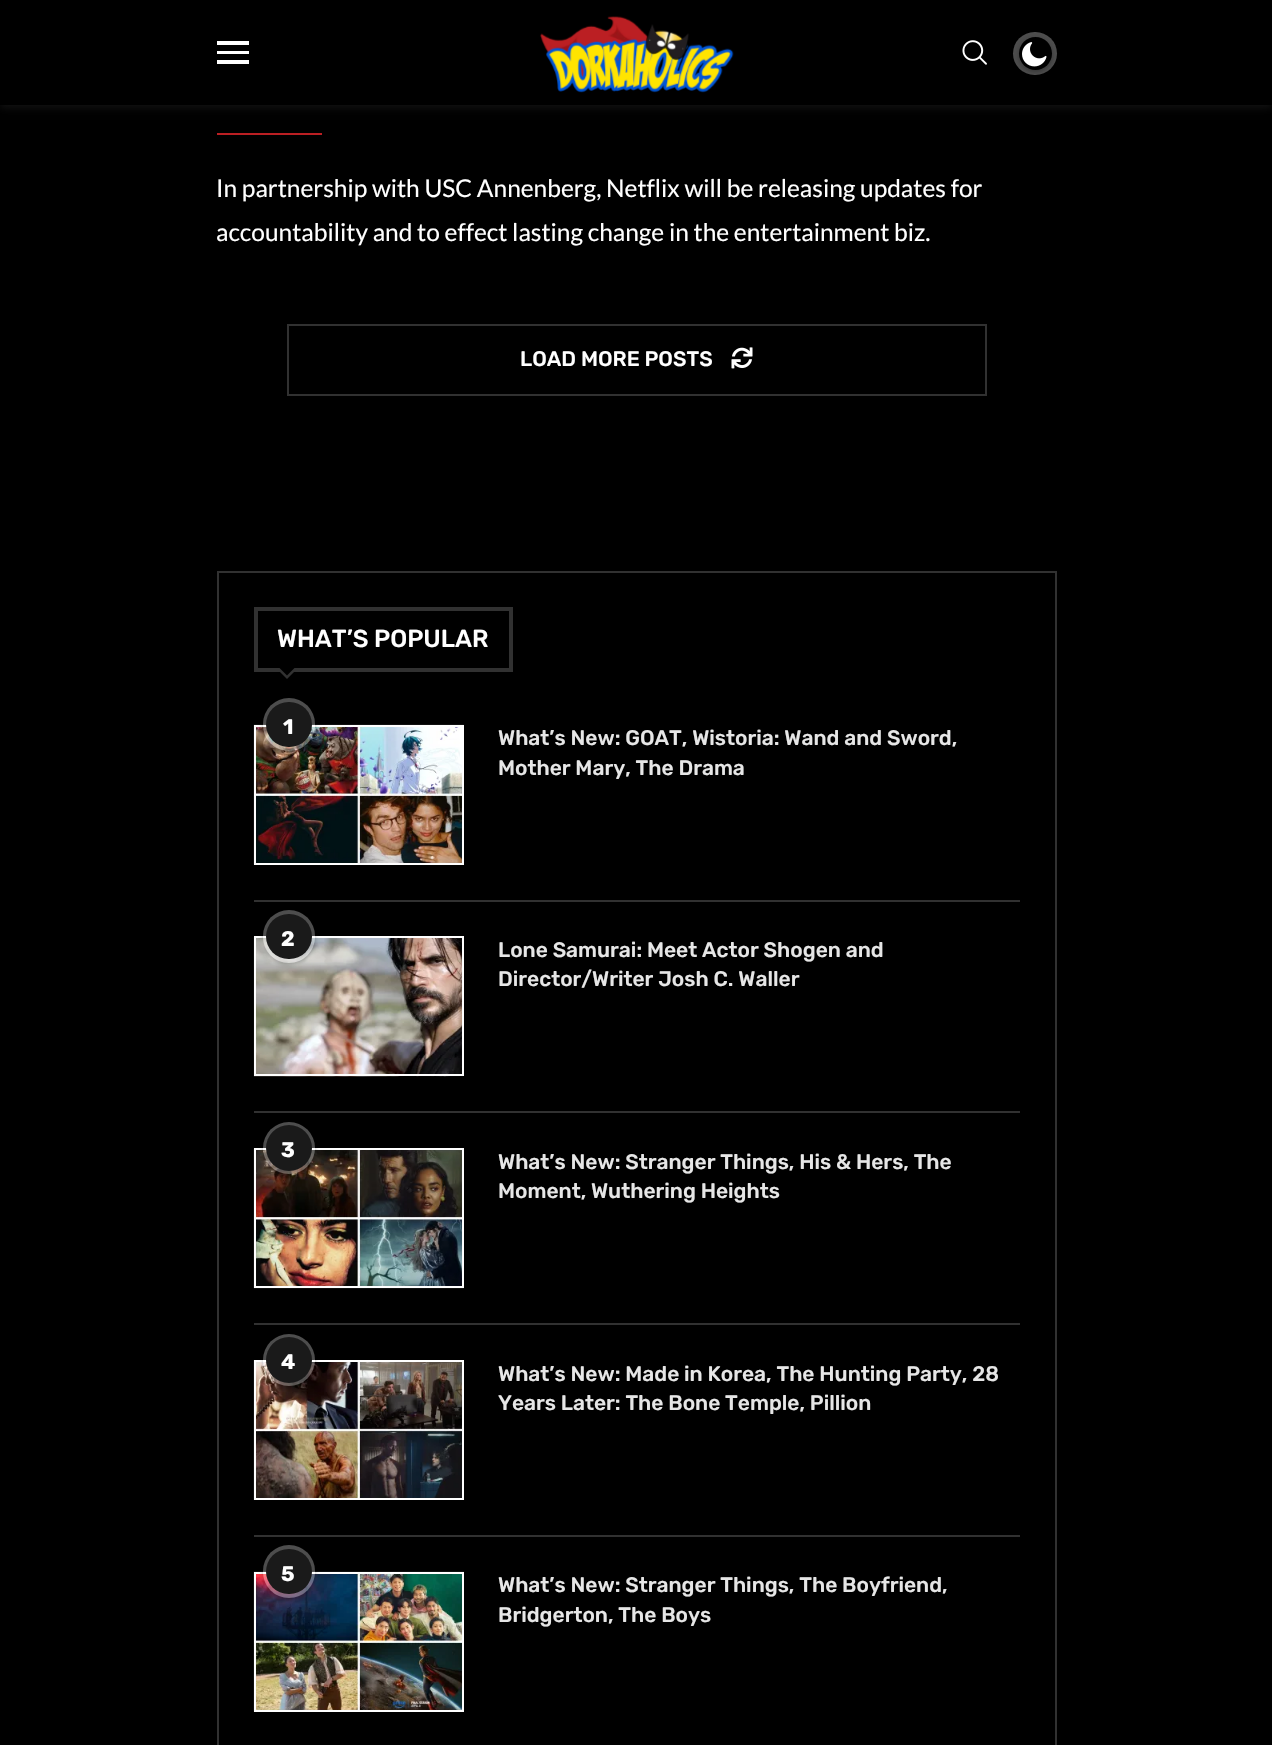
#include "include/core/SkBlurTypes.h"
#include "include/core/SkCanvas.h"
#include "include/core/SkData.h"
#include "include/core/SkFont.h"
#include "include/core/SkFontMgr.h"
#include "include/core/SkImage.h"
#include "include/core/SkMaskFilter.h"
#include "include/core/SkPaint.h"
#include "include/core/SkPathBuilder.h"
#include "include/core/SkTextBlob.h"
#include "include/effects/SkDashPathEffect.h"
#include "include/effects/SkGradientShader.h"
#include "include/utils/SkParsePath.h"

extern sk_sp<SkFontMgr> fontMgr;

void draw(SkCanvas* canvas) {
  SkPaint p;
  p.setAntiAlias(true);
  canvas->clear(SK_ColorBLACK);
  p.setColor(SkColorSetARGB(20, 255, 255, 255));
  p.setMaskFilter(SkMaskFilter::MakeBlur(kNormal_SkBlurStyle, 4.5f));
  canvas->drawRect(SkRect::MakeLTRB(0, 2, 1272, 107), p);
  p.setMaskFilter(nullptr);
  p.setColor(SK_ColorBLACK);
  canvas->drawRect(SkRect::MakeLTRB(0, 0, 1272, 105), p);
  p.setColor(SK_ColorWHITE);
  canvas->drawRect(SkRect::MakeLTRB(217, 41, 249, 45), p);
  canvas->drawRect(SkRect::MakeLTRB(217, 51, 249, 54), p);
  canvas->drawRect(SkRect::MakeLTRB(217, 60, 249, 64), p);
  canvas->drawImageRect(SkImages::DeferredFromEncodedData(SkData::MakeFromFileName("images/1.png")), SkRect::MakeLTRB(540, 16, 734, 93), SkSamplingOptions());
  canvas->drawImageRect(SkImages::DeferredFromEncodedData(SkData::MakeFromFileName("images/2.png")), SkRect::MakeLTRB(962, 40, 987, 65), SkSamplingOptions());
  p.setColor(SkColorSetRGB(77, 77, 77));
  canvas->drawRoundRect(SkRect::MakeLTRB(1013, 32, 1057, 75), 21.5f, 21.5f, p);
  p.setColor(SkColorSetARGB(77, 0, 0, 0));
  p.setMaskFilter(SkMaskFilter::MakeBlur(kNormal_SkBlurStyle, 2.5f));
  canvas->drawRoundRect(SkRect::MakeLTRB(1019, 39, 1052, 72), 16.5f, 16.5f, p);
  p.setMaskFilter(nullptr);
  p.setColor(SK_ColorBLACK);
  canvas->drawCircle(1035.5f, 53.5f, 16.5f, p);
  canvas->drawImageRect(SkImages::DeferredFromEncodedData(SkData::MakeFromFileName("images/3.png")), SkRect::MakeLTRB(1022, 42, 1047, 67), SkSamplingOptions());
  p.setColor(SkColorSetRGB(187, 31, 35));
  canvas->drawRect(SkRect::MakeLTRB(217, 133, 322, 135), p);
  p.setStyle(SkPaint::kStroke_Style);
  p.setStrokeWidth(2);
  p.setColor(SkColorSetRGB(49, 49, 49));
  canvas->drawRect(SkRect::MakeLTRB(288, 325, 986, 395), p);
  canvas->drawImageRect(SkImages::DeferredFromEncodedData(SkData::MakeFromFileName("images/4.png")), SkRect::MakeLTRB(731, 347, 753, 369), SkSamplingOptions());
  canvas->drawRect(SkRect::MakeLTRB(218, 572, 1056, 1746), p);
  p.setStrokeWidth(4);
  canvas->drawRect(SkRect::MakeLTRB(256, 609, 511, 670), p);
  p.setStyle(SkPaint::kFill_Style);
  canvas->drawPath(SkPathBuilder().moveTo(276.5f, 668.5f).lineTo(297.5f, 668.5f).lineTo(287, 679).close().detach(), p);
  p.setColor(SK_ColorBLACK);
  canvas->drawPath(SkPathBuilder().moveTo(276.5f, 665).lineTo(297.5f, 665).lineTo(287, 675.5f).close().detach(), p);
  p.setColor(SkColorSetRGB(49, 49, 49));
  canvas->drawRect(SkRect::MakeLTRB(254, 900, 1020, 902), p);
  canvas->drawImageRect(SkImages::DeferredFromEncodedData(SkData::MakeFromFileName("images/5.png")), SkRect::MakeLTRB(253, 724, 464, 865), SkSamplingOptions());
  p.setStyle(SkPaint::kStroke_Style);
  p.setStrokeWidth(2);
  p.setColor(SK_ColorWHITE);
  canvas->drawRect(SkRect::MakeLTRB(255, 726, 463, 864), p);
  canvas->save();
  canvas->clipPath(SkPathBuilder(SkPathFillType::kEvenOdd).moveTo(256, 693).lineTo(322, 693).lineTo(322, 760).lineTo(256, 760).close().moveTo(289, 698).cubicTo(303.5f, 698, 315, 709.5f, 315, 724).lineTo(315, 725).cubicTo(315, 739.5f, 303.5f, 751, 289, 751).cubicTo(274.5f, 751, 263, 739.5f, 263, 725).lineTo(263, 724).cubicTo(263, 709.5f, 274.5f, 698, 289, 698).close().detach(), true);
  p.setStyle(SkPaint::kFill_Style);
  p.setColor(SkColorSetARGB(64, 0, 0, 0));
  p.setMaskFilter(SkMaskFilter::MakeBlur(kNormal_SkBlurStyle, 2));
  canvas->drawRoundRect(SkRect::MakeLTRB(263, 700, 315, 753), 26, 26, p);
  p.setMaskFilter(nullptr);
  canvas->restore();
  p.setColor(SkColorSetARGB(77, 255, 255, 255));
  canvas->drawRoundRect(SkRect::MakeLTRB(263, 698, 315, 751), 26, 26, p);
  p.setColor(SkColorSetRGB(26, 26, 26));
  canvas->drawRoundRect(SkRect::MakeLTRB(266, 702, 312, 747), 22.5f, 22.5f, p);
  p.setColor(SkColorSetRGB(49, 49, 49));
  canvas->drawRect(SkRect::MakeLTRB(254, 1111, 1020, 1113), p);
  canvas->drawImageRect(SkImages::DeferredFromEncodedData(SkData::MakeFromFileName("images/6.png")), SkRect::MakeLTRB(253, 937, 464, 1077), SkSamplingOptions());
  p.setStyle(SkPaint::kStroke_Style);
  p.setColor(SK_ColorWHITE);
  canvas->drawRect(SkRect::MakeLTRB(255, 937, 463, 1075), p);
  canvas->save();
  canvas->clipPath(SkPathBuilder(SkPathFillType::kEvenOdd).moveTo(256, 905).lineTo(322, 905).lineTo(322, 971).lineTo(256, 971).close().moveTo(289, 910).cubicTo(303.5f, 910, 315, 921.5f, 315, 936).lineTo(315, 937).cubicTo(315, 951.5f, 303.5f, 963, 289, 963).cubicTo(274.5f, 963, 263, 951.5f, 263, 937).lineTo(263, 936).cubicTo(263, 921.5f, 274.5f, 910, 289, 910).close().detach(), true);
  p.setStyle(SkPaint::kFill_Style);
  p.setColor(SkColorSetARGB(64, 0, 0, 0));
  p.setMaskFilter(SkMaskFilter::MakeBlur(kNormal_SkBlurStyle, 2));
  canvas->drawRoundRect(SkRect::MakeLTRB(263, 912, 315, 964), 26, 26, p);
  p.setMaskFilter(nullptr);
  canvas->restore();
  p.setColor(SkColorSetARGB(77, 255, 255, 255));
  canvas->drawRoundRect(SkRect::MakeLTRB(263, 910, 315, 963), 26, 26, p);
  p.setColor(SkColorSetRGB(26, 26, 26));
  canvas->drawRoundRect(SkRect::MakeLTRB(266, 914, 312, 959), 22.5f, 22.5f, p);
  p.setColor(SkColorSetRGB(49, 49, 49));
  canvas->drawRect(SkRect::MakeLTRB(254, 1323, 1020, 1325), p);
  canvas->drawImageRect(SkImages::DeferredFromEncodedData(SkData::MakeFromFileName("images/7.png")), SkRect::MakeLTRB(253, 1148, 464, 1289), SkSamplingOptions());
  p.setStyle(SkPaint::kStroke_Style);
  p.setColor(SK_ColorWHITE);
  canvas->drawRect(SkRect::MakeLTRB(255, 1149, 463, 1287), p);
  canvas->save();
  canvas->clipPath(SkPathBuilder(SkPathFillType::kEvenOdd).moveTo(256, 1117).lineTo(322, 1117).lineTo(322, 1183).lineTo(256, 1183).close().moveTo(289, 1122).cubicTo(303.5f, 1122, 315, 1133.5f, 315, 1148).cubicTo(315, 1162.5f, 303.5f, 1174, 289, 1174).cubicTo(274.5f, 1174, 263, 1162.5f, 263, 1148).cubicTo(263, 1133.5f, 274.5f, 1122, 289, 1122).close().detach(), true);
  p.setStyle(SkPaint::kFill_Style);
  p.setColor(SkColorSetARGB(64, 0, 0, 0));
  p.setMaskFilter(SkMaskFilter::MakeBlur(kNormal_SkBlurStyle, 2));
  canvas->drawRoundRect(SkRect::MakeLTRB(263, 1124, 315, 1176), 26, 26, p);
  p.setMaskFilter(nullptr);
  canvas->restore();
  p.setColor(SkColorSetARGB(77, 255, 255, 255));
  canvas->drawCircle(289, 1148, 26, p);
  p.setColor(SkColorSetRGB(26, 26, 26));
  canvas->drawCircle(289, 1148, 23, p);
  p.setColor(SkColorSetRGB(49, 49, 49));
  canvas->drawRect(SkRect::MakeLTRB(254, 1535, 1020, 1537), p);
  canvas->drawImageRect(SkImages::DeferredFromEncodedData(SkData::MakeFromFileName("images/8.png")), SkRect::MakeLTRB(253, 1360, 462, 1500), SkSamplingOptions());
  p.setStyle(SkPaint::kStroke_Style);
  p.setColor(SK_ColorWHITE);
  canvas->drawRect(SkRect::MakeLTRB(255, 1361, 463, 1499), p);
  canvas->save();
  canvas->clipPath(SkPathBuilder(SkPathFillType::kEvenOdd).moveTo(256, 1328).lineTo(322, 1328).lineTo(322, 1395).lineTo(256, 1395).close().moveTo(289, 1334).cubicTo(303.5f, 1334, 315, 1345.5f, 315, 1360).cubicTo(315, 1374.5f, 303.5f, 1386, 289, 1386).cubicTo(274.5f, 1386, 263, 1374.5f, 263, 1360).cubicTo(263, 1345.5f, 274.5f, 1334, 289, 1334).close().detach(), true);
  p.setStyle(SkPaint::kFill_Style);
  p.setColor(SkColorSetARGB(64, 0, 0, 0));
  p.setMaskFilter(SkMaskFilter::MakeBlur(kNormal_SkBlurStyle, 2));
  canvas->drawRoundRect(SkRect::MakeLTRB(263, 1335, 315, 1388), 26, 26, p);
  p.setMaskFilter(nullptr);
  canvas->restore();
  p.setColor(SkColorSetARGB(77, 255, 255, 255));
  canvas->drawCircle(289, 1360, 26, p);
  p.setColor(SkColorSetRGB(26, 26, 26));
  canvas->drawCircle(289, 1360, 23, p);
  canvas->drawImageRect(SkImages::DeferredFromEncodedData(SkData::MakeFromFileName("images/9.png")), SkRect::MakeLTRB(253, 1571, 464, 1712), SkSamplingOptions());
  p.setStyle(SkPaint::kStroke_Style);
  p.setColor(SK_ColorWHITE);
  canvas->drawRect(SkRect::MakeLTRB(255, 1573, 463, 1711), p);
  canvas->save();
  canvas->clipPath(SkPathBuilder(SkPathFillType::kEvenOdd).moveTo(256, 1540).lineTo(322, 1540).lineTo(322, 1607).lineTo(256, 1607).close().moveTo(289, 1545).cubicTo(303.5f, 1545, 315, 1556.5f, 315, 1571).lineTo(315, 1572).cubicTo(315, 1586.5f, 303.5f, 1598, 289, 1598).cubicTo(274.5f, 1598, 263, 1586.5f, 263, 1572).lineTo(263, 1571).cubicTo(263, 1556.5f, 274.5f, 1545, 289, 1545).close().detach(), true);
  p.setStyle(SkPaint::kFill_Style);
  p.setColor(SkColorSetARGB(64, 0, 0, 0));
  p.setMaskFilter(SkMaskFilter::MakeBlur(kNormal_SkBlurStyle, 2));
  canvas->drawRoundRect(SkRect::MakeLTRB(263, 1547, 315, 1600), 26, 26, p);
  p.setMaskFilter(nullptr);
  canvas->restore();
  p.setColor(SkColorSetARGB(77, 255, 255, 255));
  canvas->drawRoundRect(SkRect::MakeLTRB(263, 1545, 315, 1598), 26, 26, p);
  p.setColor(SkColorSetRGB(26, 26, 26));
  canvas->drawRoundRect(SkRect::MakeLTRB(266, 1549, 312, 1594), 22.5f, 22.5f, p);
  SkFont font1(fontMgr->matchFamilyStyle("Lato", SkFontStyle::Normal()), 24.5f);
  font1.setSubpixel(true);
  p.setColor(SK_ColorWHITE);
  canvas->drawString("In partnership with USC Annenberg, Netflix will be releasing updates for", 216, 197, font1, p);
  canvas->drawString("accountability and to effect lasting change in the entertainment biz.", 216, 241, font1, p);
  SkFont font2(fontMgr->matchFamilyStyle("Rubik", SkFontStyle(500, SkFontStyle::kNormal_Width, SkFontStyle::kUpright_Slant)), 21);
  font2.setSubpixel(true);
  canvas->drawString("LOAD MORE POSTS", 520, 366, font2, p);
  SkFont font3(fontMgr->matchFamilyStyle("Rubik", SkFontStyle(500, SkFontStyle::kNormal_Width, SkFontStyle::kUpright_Slant)), 24.5f);
  font3.setSubpixel(true);
  canvas->drawString("WHAT’S POPULAR", 277, 647, font3, p);
  SkFont font4(fontMgr->matchFamilyStyle("Rubik", SkFontStyle::Bold()), 21);
  font4.setSubpixel(true);
  canvas->drawString("1", 283, 734, font4, p);
  p.setColor(SkColorSetRGB(230, 230, 230));
  canvas->drawString("What’s New: GOAT, Wistoria: Wand and Sword,", 498, 745, font2, p);
  canvas->drawString("Mother Mary, The Drama", 498, 775, font2, p);
  p.setColor(SK_ColorWHITE);
  canvas->drawString("2", 281, 946, font4, p);
  p.setColor(SkColorSetRGB(230, 230, 230));
  canvas->drawString("Lone Samurai: Meet Actor Shogen and", 498, 957, font2, p);
  canvas->drawString("Director/Writer Josh C. Waller", 498, 986, font2, p);
  p.setColor(SK_ColorWHITE);
  canvas->drawString("3", 281, 1157, font4, p);
  p.setColor(SkColorSetRGB(230, 230, 230));
  canvas->drawString("What’s New: Stranger Things, His & Hers, The", 498, 1169, font2, p);
  canvas->drawString("Moment, Wuthering Heights", 498, 1198, font2, p);
  p.setColor(SK_ColorWHITE);
  canvas->drawString("4", 281, 1369, font4, p);
  p.setColor(SkColorSetRGB(230, 230, 230));
  canvas->drawString("What’s New: Made in Korea, The Hunting Party, 28", 498, 1381, font2, p);
  canvas->drawString("Years Later: The Bone Temple, Pillion", 498, 1410, font2, p);
  p.setColor(SK_ColorWHITE);
  canvas->drawString("5", 281, 1581, font4, p);
  p.setColor(SkColorSetRGB(230, 230, 230));
  canvas->drawString("What’s New: Stranger Things, The Boyfriend,", 498, 1592, font2, p);
  canvas->drawString("Bridgerton, The Boys", 498, 1622, font2, p);
}
